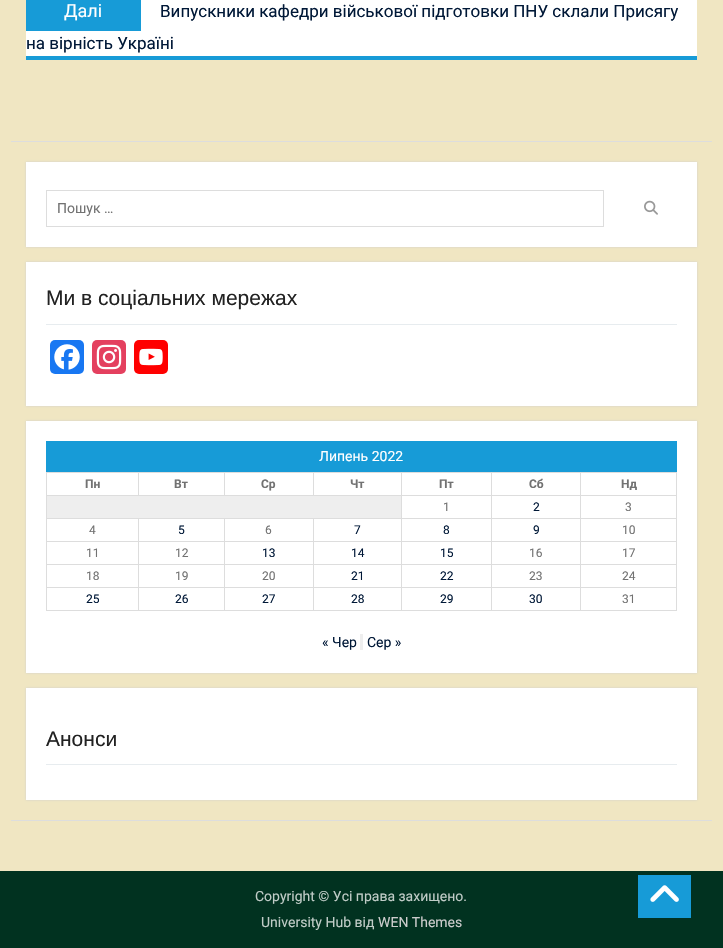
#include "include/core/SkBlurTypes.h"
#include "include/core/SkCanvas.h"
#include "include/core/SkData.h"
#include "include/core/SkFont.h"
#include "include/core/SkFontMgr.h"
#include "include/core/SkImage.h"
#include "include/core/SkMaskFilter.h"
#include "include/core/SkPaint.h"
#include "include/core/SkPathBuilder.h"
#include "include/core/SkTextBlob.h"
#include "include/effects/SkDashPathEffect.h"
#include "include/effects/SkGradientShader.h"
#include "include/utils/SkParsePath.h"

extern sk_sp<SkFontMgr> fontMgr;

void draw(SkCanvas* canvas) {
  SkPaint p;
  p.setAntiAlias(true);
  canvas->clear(SkColorSetRGB(240, 230, 194));
  p.setColor(SkColorSetRGB(221, 221, 221));
  canvas->drawRect(SkRect::MakeLTRB(11, 141, 712, 142), p);
  p.setColor(SkColorSetRGB(23, 155, 215));
  canvas->drawRect(SkRect::MakeLTRB(26, 56, 697, 60), p);
  p.setColor(SK_ColorWHITE);
  canvas->drawRect(SkRect::MakeLTRB(26, 0, 697, 56), p);
  p.setColor(SkColorSetRGB(23, 155, 215));
  canvas->drawRect(SkRect::MakeLTRB(26, 0, 141, 31), p);
  p.setColor(SkColorSetRGB(221, 221, 221));
  canvas->drawRect(SkRect::MakeLTRB(11, 820, 712, 821), p);
  p.setColor(SkColorSetRGB(207, 207, 207));
  p.setMaskFilter(SkMaskFilter::MakeBlur(kNormal_SkBlurStyle, 1));
  canvas->drawRect(SkRect::MakeLTRB(26, 162, 697, 247), p);
  p.setMaskFilter(nullptr);
  p.setColor(SK_ColorWHITE);
  canvas->drawRect(SkRect::MakeLTRB(26, 162, 697, 247), p);
  p.setStyle(SkPaint::kStroke_Style);
  p.setStrokeWidth(1);
  p.setColor(SkColorSetRGB(221, 221, 221));
  canvas->drawRect(SkRect::MakeLTRB(46.5f, 190.5f, 603.5f, 226.5f), p);
  canvas->drawImageRect(SkImages::DeferredFromEncodedData(SkData::MakeFromFileName("images/1.png")), SkRect::MakeLTRB(644, 200, 658, 215), SkSamplingOptions());
  p.setStyle(SkPaint::kFill_Style);
  p.setColor(SkColorSetRGB(207, 207, 207));
  p.setMaskFilter(SkMaskFilter::MakeBlur(kNormal_SkBlurStyle, 1));
  canvas->drawRect(SkRect::MakeLTRB(26, 262, 697, 406), p);
  p.setMaskFilter(nullptr);
  p.setColor(SK_ColorWHITE);
  canvas->drawRect(SkRect::MakeLTRB(26, 262, 697, 406), p);
  p.setColor(SkColorSetRGB(231, 236, 239));
  canvas->drawRect(SkRect::MakeLTRB(46, 324, 677, 325), p);
  p.setColor(SkColorSetRGB(24, 119, 242));
  canvas->drawRoundRect(SkRect::MakeLTRB(50, 340, 84, 374), 5, 5, p);
  canvas->drawImageRect(SkImages::DeferredFromEncodedData(SkData::MakeFromFileName("images/2.png")), SkRect::MakeLTRB(54, 344, 80, 370), SkSamplingOptions());
  p.setColor(SkColorSetRGB(228, 64, 95));
  canvas->drawRoundRect(SkRect::MakeLTRB(92, 340, 126, 374), 5, 5, p);
  canvas->drawImageRect(SkImages::DeferredFromEncodedData(SkData::MakeFromFileName("images/3.png")), SkRect::MakeLTRB(96, 344, 122, 370), SkSamplingOptions());
  p.setColor(SkColorSetRGB(255, 0, 0));
  canvas->drawRoundRect(SkRect::MakeLTRB(134, 340, 168, 374), 5, 5, p);
  canvas->drawImageRect(SkImages::DeferredFromEncodedData(SkData::MakeFromFileName("images/4.png")), SkRect::MakeLTRB(139, 348, 163, 366), SkSamplingOptions());
  p.setColor(SkColorSetRGB(207, 207, 207));
  p.setMaskFilter(SkMaskFilter::MakeBlur(kNormal_SkBlurStyle, 1));
  canvas->drawRect(SkRect::MakeLTRB(26, 421, 697, 673), p);
  p.setMaskFilter(nullptr);
  p.setColor(SK_ColorWHITE);
  canvas->drawRect(SkRect::MakeLTRB(26, 421, 697, 673), p);
  p.setColor(SkColorSetRGB(23, 155, 215));
  canvas->drawRect(SkRect::MakeLTRB(46, 441, 677, 472), p);
  p.setColor(SkColorSetRGB(221, 221, 221));
  canvas->drawRect(SkRect::MakeLTRB(580, 472, 677, 473), p);
  canvas->drawRect(SkRect::MakeLTRB(580, 495, 677, 496), p);
  canvas->drawRect(SkRect::MakeLTRB(580, 518, 677, 519), p);
  canvas->drawRect(SkRect::MakeLTRB(580, 541, 677, 542), p);
  canvas->drawRect(SkRect::MakeLTRB(580, 564, 677, 565), p);
  canvas->drawRect(SkRect::MakeLTRB(580, 587, 677, 588), p);
  canvas->drawRect(SkRect::MakeLTRB(676, 587, 677, 611), p);
  canvas->drawRect(SkRect::MakeLTRB(580, 610, 677, 611), p);
  canvas->drawRect(SkRect::MakeLTRB(580, 587, 581, 611), p);
  canvas->drawRect(SkRect::MakeLTRB(491, 587, 581, 588), p);
  canvas->drawRect(SkRect::MakeLTRB(580, 564, 581, 588), p);
  canvas->drawRect(SkRect::MakeLTRB(491, 564, 581, 565), p);
  canvas->drawRect(SkRect::MakeLTRB(580, 541, 581, 565), p);
  canvas->drawRect(SkRect::MakeLTRB(491, 541, 581, 542), p);
  canvas->drawRect(SkRect::MakeLTRB(580, 518, 581, 542), p);
  canvas->drawRect(SkRect::MakeLTRB(491, 518, 581, 519), p);
  canvas->drawRect(SkRect::MakeLTRB(580, 495, 581, 519), p);
  canvas->drawRect(SkRect::MakeLTRB(491, 495, 581, 496), p);
  canvas->drawRect(SkRect::MakeLTRB(580, 472, 581, 496), p);
  canvas->drawRect(SkRect::MakeLTRB(491, 472, 581, 473), p);
  canvas->drawRect(SkRect::MakeLTRB(491, 610, 581, 611), p);
  canvas->drawRect(SkRect::MakeLTRB(491, 587, 492, 611), p);
  canvas->drawRect(SkRect::MakeLTRB(401, 587, 492, 588), p);
  canvas->drawRect(SkRect::MakeLTRB(491, 564, 492, 588), p);
  canvas->drawRect(SkRect::MakeLTRB(401, 564, 492, 565), p);
  canvas->drawRect(SkRect::MakeLTRB(491, 541, 492, 565), p);
  canvas->drawRect(SkRect::MakeLTRB(401, 541, 492, 542), p);
  canvas->drawRect(SkRect::MakeLTRB(491, 518, 492, 542), p);
  canvas->drawRect(SkRect::MakeLTRB(401, 518, 492, 519), p);
  canvas->drawRect(SkRect::MakeLTRB(491, 495, 492, 519), p);
  canvas->drawRect(SkRect::MakeLTRB(401, 495, 492, 496), p);
  canvas->drawRect(SkRect::MakeLTRB(491, 472, 492, 496), p);
  canvas->drawRect(SkRect::MakeLTRB(401, 472, 492, 473), p);
  canvas->drawRect(SkRect::MakeLTRB(401, 610, 492, 611), p);
  canvas->drawRect(SkRect::MakeLTRB(401, 587, 402, 611), p);
  canvas->drawRect(SkRect::MakeLTRB(313, 587, 402, 588), p);
  canvas->drawRect(SkRect::MakeLTRB(401, 564, 402, 588), p);
  canvas->drawRect(SkRect::MakeLTRB(313, 564, 402, 565), p);
  canvas->drawRect(SkRect::MakeLTRB(401, 541, 402, 565), p);
  canvas->drawRect(SkRect::MakeLTRB(313, 541, 402, 542), p);
  canvas->drawRect(SkRect::MakeLTRB(401, 518, 402, 542), p);
  canvas->drawRect(SkRect::MakeLTRB(313, 518, 402, 519), p);
  canvas->drawRect(SkRect::MakeLTRB(401, 495, 402, 519), p);
  canvas->drawRect(SkRect::MakeLTRB(46, 495, 402, 496), p);
  canvas->drawRect(SkRect::MakeLTRB(401, 472, 402, 496), p);
  canvas->drawRect(SkRect::MakeLTRB(313, 472, 402, 473), p);
  canvas->drawRect(SkRect::MakeLTRB(313, 472, 314, 496), p);
  canvas->drawRect(SkRect::MakeLTRB(224, 472, 314, 473), p);
  canvas->drawRect(SkRect::MakeLTRB(224, 472, 225, 496), p);
  canvas->drawRect(SkRect::MakeLTRB(138, 472, 225, 473), p);
  canvas->drawRect(SkRect::MakeLTRB(138, 472, 139, 496), p);
  canvas->drawRect(SkRect::MakeLTRB(46, 472, 139, 473), p);
  canvas->drawRect(SkRect::MakeLTRB(313, 610, 402, 611), p);
  canvas->drawRect(SkRect::MakeLTRB(313, 587, 314, 611), p);
  canvas->drawRect(SkRect::MakeLTRB(224, 587, 314, 588), p);
  canvas->drawRect(SkRect::MakeLTRB(313, 564, 314, 588), p);
  canvas->drawRect(SkRect::MakeLTRB(224, 564, 314, 565), p);
  canvas->drawRect(SkRect::MakeLTRB(313, 541, 314, 565), p);
  canvas->drawRect(SkRect::MakeLTRB(224, 541, 314, 542), p);
  canvas->drawRect(SkRect::MakeLTRB(313, 518, 314, 542), p);
  canvas->drawRect(SkRect::MakeLTRB(224, 518, 314, 519), p);
  canvas->drawRect(SkRect::MakeLTRB(224, 610, 314, 611), p);
  canvas->drawRect(SkRect::MakeLTRB(224, 587, 225, 611), p);
  canvas->drawRect(SkRect::MakeLTRB(138, 587, 225, 588), p);
  canvas->drawRect(SkRect::MakeLTRB(224, 564, 225, 588), p);
  canvas->drawRect(SkRect::MakeLTRB(138, 564, 225, 565), p);
  canvas->drawRect(SkRect::MakeLTRB(224, 541, 225, 565), p);
  canvas->drawRect(SkRect::MakeLTRB(138, 541, 225, 542), p);
  canvas->drawRect(SkRect::MakeLTRB(224, 518, 225, 542), p);
  canvas->drawRect(SkRect::MakeLTRB(138, 518, 225, 519), p);
  canvas->drawRect(SkRect::MakeLTRB(138, 610, 225, 611), p);
  canvas->drawRect(SkRect::MakeLTRB(138, 587, 139, 611), p);
  canvas->drawRect(SkRect::MakeLTRB(46, 587, 139, 588), p);
  canvas->drawRect(SkRect::MakeLTRB(138, 564, 139, 588), p);
  canvas->drawRect(SkRect::MakeLTRB(46, 564, 139, 565), p);
  canvas->drawRect(SkRect::MakeLTRB(138, 541, 139, 565), p);
  canvas->drawRect(SkRect::MakeLTRB(46, 541, 139, 542), p);
  canvas->drawRect(SkRect::MakeLTRB(138, 518, 139, 542), p);
  canvas->drawRect(SkRect::MakeLTRB(46, 518, 139, 519), p);
  canvas->drawRect(SkRect::MakeLTRB(46, 610, 139, 611), p);
  canvas->drawRect(SkRect::MakeLTRB(46, 587, 47, 611), p);
  canvas->drawRect(SkRect::MakeLTRB(46, 564, 47, 588), p);
  canvas->drawRect(SkRect::MakeLTRB(46, 541, 47, 565), p);
  canvas->drawRect(SkRect::MakeLTRB(46, 518, 47, 542), p);
  canvas->drawRect(SkRect::MakeLTRB(46, 495, 47, 519), p);
  canvas->drawRect(SkRect::MakeLTRB(46, 472, 47, 496), p);
  canvas->drawRect(SkRect::MakeLTRB(676, 564, 677, 588), p);
  canvas->drawRect(SkRect::MakeLTRB(676, 541, 677, 565), p);
  canvas->drawRect(SkRect::MakeLTRB(676, 518, 677, 542), p);
  canvas->drawRect(SkRect::MakeLTRB(676, 495, 677, 519), p);
  canvas->drawRect(SkRect::MakeLTRB(676, 472, 677, 496), p);
  p.setColor(SkColorSetRGB(238, 238, 238));
  canvas->drawRect(SkRect::MakeLTRB(47, 496, 401, 518), p);
  canvas->drawRect(SkRect::MakeLTRB(360, 634, 363, 650), p);
  p.setColor(SkColorSetRGB(207, 207, 207));
  p.setMaskFilter(SkMaskFilter::MakeBlur(kNormal_SkBlurStyle, 1));
  canvas->drawRect(SkRect::MakeLTRB(26, 688, 697, 800), p);
  p.setMaskFilter(nullptr);
  p.setColor(SK_ColorWHITE);
  canvas->drawRect(SkRect::MakeLTRB(26, 688, 697, 800), p);
  p.setColor(SkColorSetRGB(231, 236, 239));
  canvas->drawRect(SkRect::MakeLTRB(46, 764, 677, 765), p);
  p.setColor(SkColorSetRGB(1, 50, 32));
  canvas->drawRect(SkRect::MakeLTRB(0, 871, 723, 948), p);
  p.setColor(SkColorSetRGB(23, 155, 215));
  canvas->drawRect(SkRect::MakeLTRB(638, 875, 691, 918), p);
  canvas->drawImageRect(SkImages::DeferredFromEncodedData(SkData::MakeFromFileName("images/5.png")), SkRect::MakeLTRB(650, 885, 679, 902), SkSamplingOptions());
  SkFont font1(fontMgr->matchFamilyStyle("Roboto", SkFontStyle::Normal()), 18);
  font1.setSubpixel(true);
  p.setColor(SK_ColorWHITE);
  canvas->drawString("Далі", 64, 17, font1, p);
  SkFont font2(fontMgr->matchFamilyStyle("Roboto", SkFontStyle::Normal()), 17);
  font2.setSubpixel(true);
  p.setColor(SkColorSetRGB(0, 24, 55));
  canvas->drawString("Випускники кафедри військової підготовки ПНУ склали Присягу", 160, 17, font2, p);
  canvas->drawString("на вірність Україні", 26, 49, font2, p);
  SkFont font3(fontMgr->matchFamilyStyle("Roboto", SkFontStyle::Normal()), 14);
  font3.setSubpixel(true);
  p.setColor(SkColorSetRGB(114, 114, 114));
  canvas->drawString("Пошук …", 57, 213, font3, p);
  SkFont font4(fontMgr->matchFamilyStyle("Liberation Sans", SkFontStyle::Normal()), 21);
  font4.setSubpixel(true);
  p.setColor(SkColorSetRGB(34, 34, 34));
  canvas->drawString("Ми в соціальних мережах", 46, 305, font4, p);
  p.setColor(SK_ColorWHITE);
  canvas->drawString("Липень 2022", 319, 461, font3, p);
  SkFont font5(fontMgr->matchFamilyStyle("Roboto", SkFontStyle::Bold()), 12);
  font5.setSubpixel(true);
  p.setColor(SkColorSetRGB(114, 114, 114));
  canvas->drawString("Пн", 85, 488, font5, p);
  canvas->drawString("Вт", 174, 488, font5, p);
  canvas->drawString("Ср", 261, 488, font5, p);
  canvas->drawString("Чт", 350, 488, font5, p);
  canvas->drawString("Пт", 439, 488, font5, p);
  canvas->drawString("Сб", 529, 488, font5, p);
  canvas->drawString("Нд", 621, 488, font5, p);
  SkFont font6(fontMgr->matchFamilyStyle("Roboto", SkFontStyle::Normal()), 12);
  font6.setSubpixel(true);
  canvas->drawString("1", 443, 511, font6, p);
  p.setColor(SkColorSetRGB(0, 24, 55));
  canvas->drawString("2", 533, 511, font6, p);
  p.setColor(SkColorSetRGB(114, 114, 114));
  canvas->drawString("3", 625, 511, font6, p);
  canvas->drawString("4", 89, 534, font6, p);
  p.setColor(SkColorSetRGB(0, 24, 55));
  canvas->drawString("5", 178, 534, font6, p);
  p.setColor(SkColorSetRGB(114, 114, 114));
  canvas->drawString("6", 265, 534, font6, p);
  p.setColor(SkColorSetRGB(0, 24, 55));
  canvas->drawString("7", 354, 534, font6, p);
  canvas->drawString("8", 443, 534, font6, p);
  canvas->drawString("9", 533, 534, font6, p);
  p.setColor(SkColorSetRGB(114, 114, 114));
  canvas->drawString("10", 622, 534, font6, p);
  canvas->drawString("11", 86, 557, font6, p);
  canvas->drawString("12", 175, 557, font6, p);
  p.setColor(SkColorSetRGB(0, 24, 55));
  canvas->drawString("13", 262, 557, font6, p);
  canvas->drawString("14", 351, 557, font6, p);
  canvas->drawString("15", 440, 557, font6, p);
  p.setColor(SkColorSetRGB(114, 114, 114));
  canvas->drawString("16", 529, 557, font6, p);
  canvas->drawString("17", 622, 557, font6, p);
  canvas->drawString("18", 86, 580, font6, p);
  canvas->drawString("19", 175, 580, font6, p);
  canvas->drawString("20", 262, 580, font6, p);
  p.setColor(SkColorSetRGB(0, 24, 55));
  canvas->drawString("21", 351, 580, font6, p);
  canvas->drawString("22", 440, 580, font6, p);
  p.setColor(SkColorSetRGB(114, 114, 114));
  canvas->drawString("23", 529, 580, font6, p);
  canvas->drawString("24", 622, 580, font6, p);
  p.setColor(SkColorSetRGB(0, 24, 55));
  canvas->drawString("25", 86, 603, font6, p);
  canvas->drawString("26", 175, 603, font6, p);
  canvas->drawString("27", 262, 603, font6, p);
  canvas->drawString("28", 351, 603, font6, p);
  canvas->drawString("29", 440, 603, font6, p);
  canvas->drawString("30", 529, 603, font6, p);
  p.setColor(SkColorSetRGB(114, 114, 114));
  canvas->drawString("31", 622, 603, font6, p);
  p.setColor(SkColorSetRGB(0, 24, 55));
  canvas->drawString("« Чер", 322, 647, font3, p);
  canvas->drawString("Сер »", 367, 647, font3, p);
  p.setColor(SkColorSetRGB(34, 34, 34));
  canvas->drawString("Анонси", 46, 746, font4, p);
  p.setColor(SkColorSetRGB(192, 204, 199));
  canvas->drawString("Copyright © Усі права захищено.", 255, 901, font3, p);
  canvas->drawString("University Hub від", 261, 927, font3, p);
  p.setColor(SkColorSetRGB(204, 204, 204));
  canvas->drawString("WEN Themes", 378, 927, font3, p);
}
